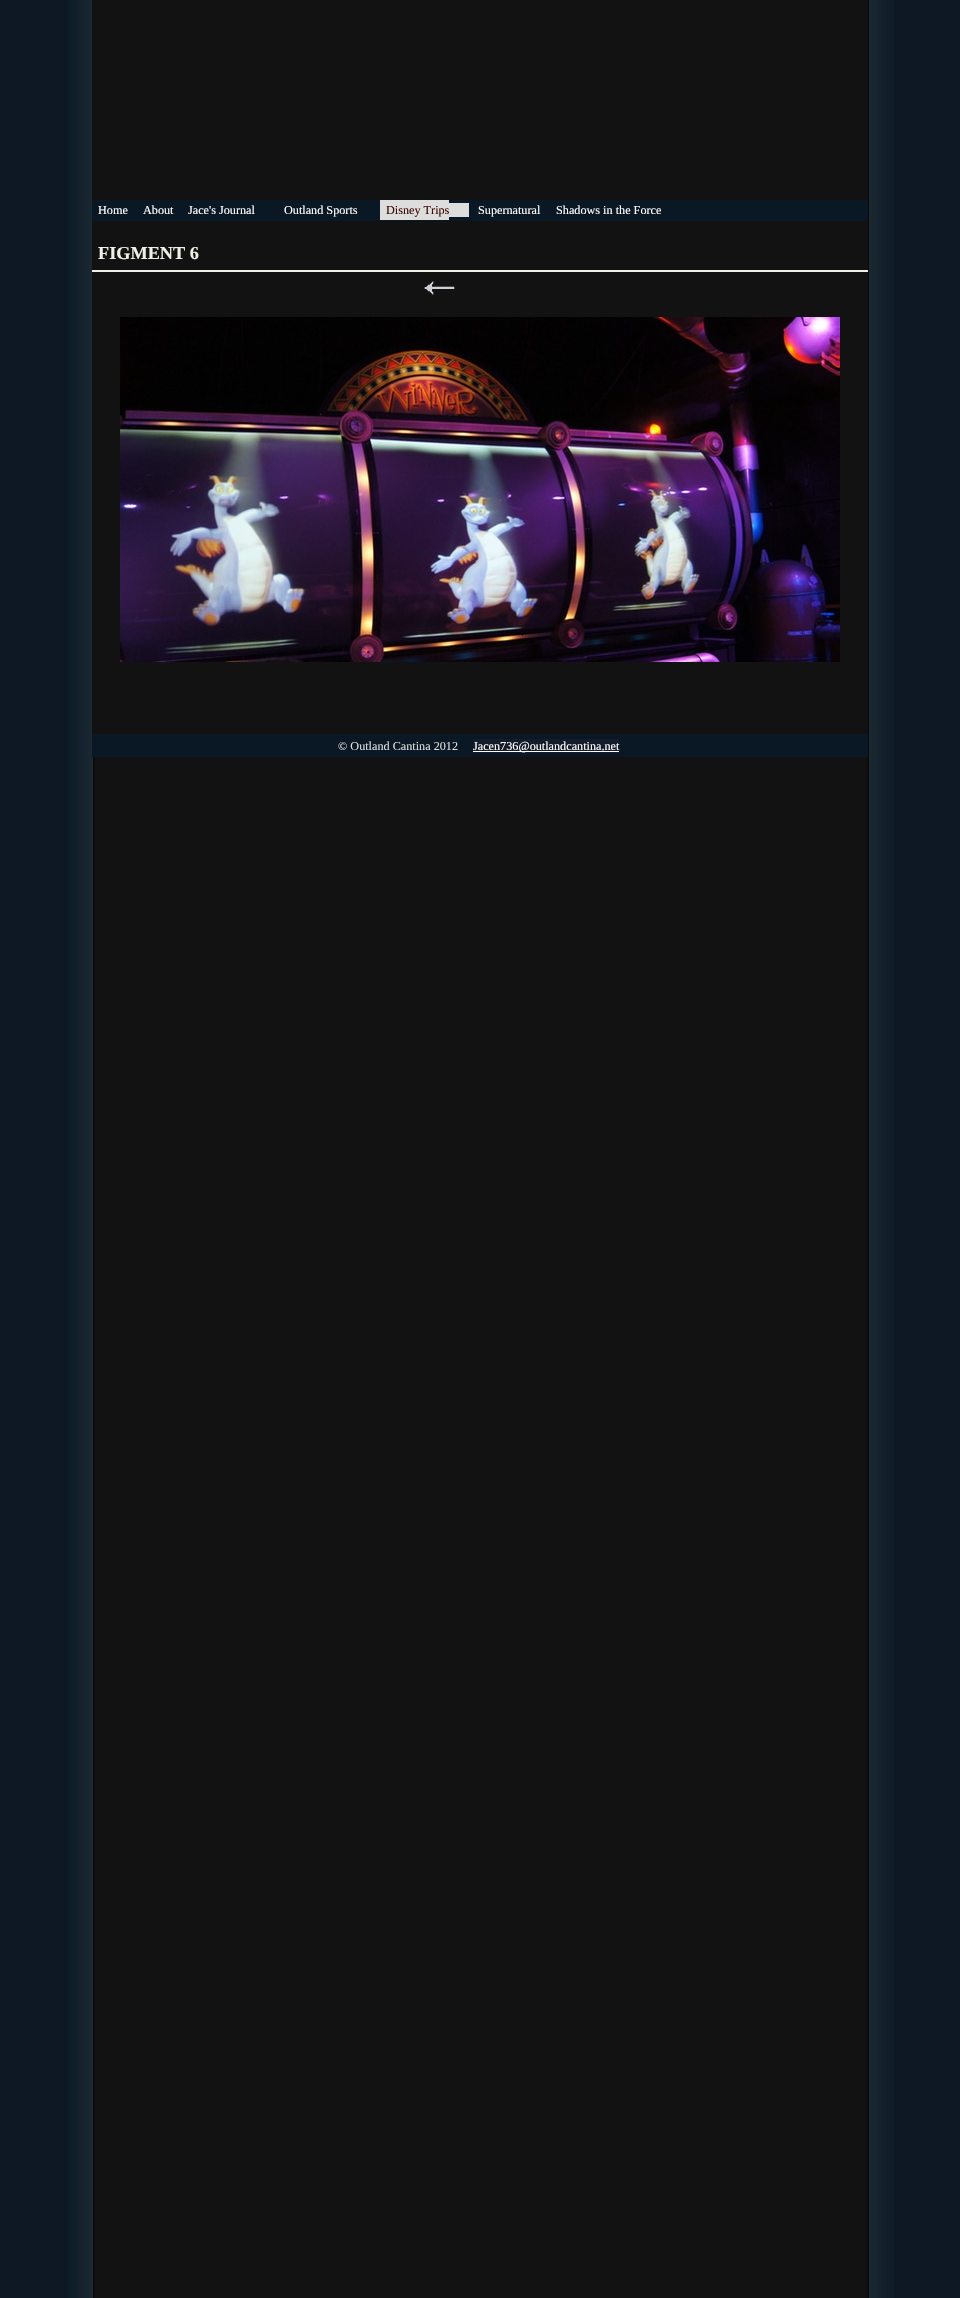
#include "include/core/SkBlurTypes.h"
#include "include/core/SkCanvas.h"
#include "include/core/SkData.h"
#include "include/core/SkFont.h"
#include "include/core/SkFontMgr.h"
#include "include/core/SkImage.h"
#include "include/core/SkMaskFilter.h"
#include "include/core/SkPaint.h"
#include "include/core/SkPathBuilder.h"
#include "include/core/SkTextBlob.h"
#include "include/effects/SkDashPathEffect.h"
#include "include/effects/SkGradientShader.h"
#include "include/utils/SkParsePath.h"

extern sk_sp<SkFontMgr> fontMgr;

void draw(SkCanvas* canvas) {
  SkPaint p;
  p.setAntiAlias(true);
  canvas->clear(SkColorSetRGB(14, 24, 36));
  canvas->drawImageRect(SkImages::DeferredFromEncodedData(SkData::MakeFromFileName("images/1.png")), SkRect::MakeLTRB(67, 0, 895, 2298), SkSamplingOptions());
  p.setColor(SkColorSetRGB(18, 18, 18));
  canvas->drawRect(SkRect::MakeLTRB(92, 0, 868, 734), p);
  p.setColor(SkColorSetRGB(10, 23, 37));
  canvas->drawRect(SkRect::MakeLTRB(92, 200, 868, 221), p);
  p.setColor(SkColorSetRGB(221, 221, 221));
  canvas->drawRect(SkRect::MakeLTRB(380, 200, 449, 220), p);
  canvas->drawRect(SkRect::MakeLTRB(449, 203, 469, 217), p);
  p.setColor(SkColorSetRGB(239, 239, 231));
  canvas->drawRect(SkRect::MakeLTRB(92, 270, 868, 272), p);
  canvas->drawImageRect(SkImages::DeferredFromEncodedData(SkData::MakeFromFileName("images/2.png")), SkRect::MakeLTRB(424, 281, 455, 295), SkSamplingOptions());
  canvas->drawImageRect(SkImages::DeferredFromEncodedData(SkData::MakeFromFileName("images/3.png")), SkRect::MakeLTRB(120, 317, 840, 662), SkSamplingOptions());
  p.setColor(SkColorSetRGB(10, 23, 37));
  canvas->drawRect(SkRect::MakeLTRB(92, 734, 868, 757), p);
  p.setColor(SkColorSetRGB(20, 27, 42));
  canvas->drawRect(SkRect::MakeLTRB(473, 739, 619, 753), p);
  p.setColor(SK_ColorWHITE);
  canvas->drawRect(SkRect::MakeLTRB(473, 751, 619, 752), p);
  SkFont font1(fontMgr->matchFamilyStyle("Liberation Serif", SkFontStyle::Normal()), 12.2f);
  font1.setSubpixel(true);
  canvas->drawString("Home", 98, 214, font1, p);
  canvas->drawString("About", 143, 214, font1, p);
  canvas->drawString("Jace's Journal", 188, 214, font1, p);
  canvas->drawString("Outland Sports", 284, 214, font1, p);
  p.setColor(SkColorSetRGB(59, 7, 0));
  canvas->drawString("Disney Trips", 386, 214, font1, p);
  p.setColor(SK_ColorWHITE);
  canvas->drawString("Supernatural", 478, 214, font1, p);
  canvas->drawString("Shadows in the Force", 556, 214, font1, p);
  SkFont font2(fontMgr->matchFamilyStyle("Liberation Serif", SkFontStyle::Bold()), 18.25f);
  font2.setSubpixel(true);
  p.setColor(SkColorSetRGB(239, 239, 231));
  canvas->drawString("FIGMENT 6", 98, 259, font2, p);
  p.setColor(SkColorSetRGB(221, 221, 221));
  canvas->drawString("© Outland Cantina 2012", 338, 750, font1, p);
  p.setColor(SK_ColorWHITE);
  canvas->drawString("Jacen736@outlandcantina.net", 473, 750, font1, p);
}
